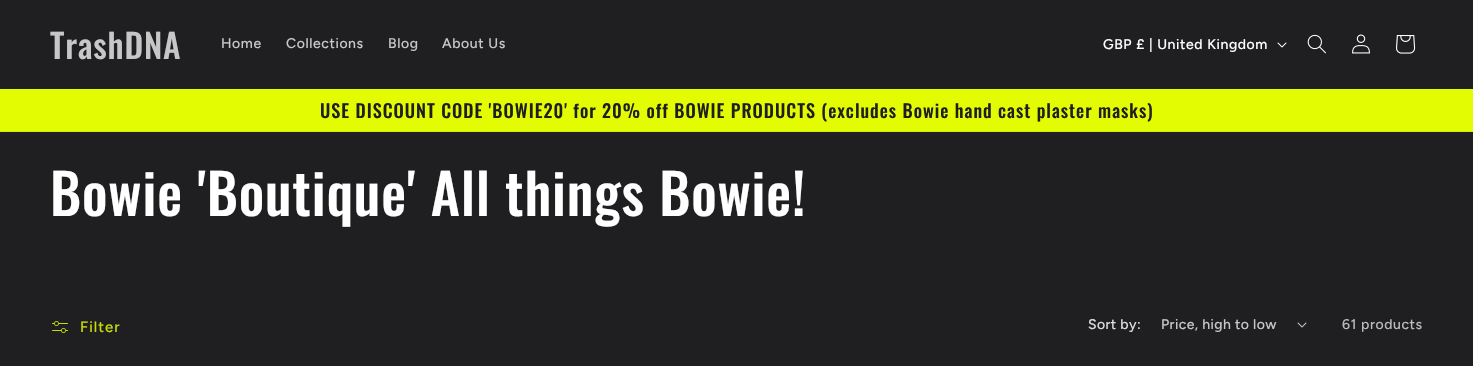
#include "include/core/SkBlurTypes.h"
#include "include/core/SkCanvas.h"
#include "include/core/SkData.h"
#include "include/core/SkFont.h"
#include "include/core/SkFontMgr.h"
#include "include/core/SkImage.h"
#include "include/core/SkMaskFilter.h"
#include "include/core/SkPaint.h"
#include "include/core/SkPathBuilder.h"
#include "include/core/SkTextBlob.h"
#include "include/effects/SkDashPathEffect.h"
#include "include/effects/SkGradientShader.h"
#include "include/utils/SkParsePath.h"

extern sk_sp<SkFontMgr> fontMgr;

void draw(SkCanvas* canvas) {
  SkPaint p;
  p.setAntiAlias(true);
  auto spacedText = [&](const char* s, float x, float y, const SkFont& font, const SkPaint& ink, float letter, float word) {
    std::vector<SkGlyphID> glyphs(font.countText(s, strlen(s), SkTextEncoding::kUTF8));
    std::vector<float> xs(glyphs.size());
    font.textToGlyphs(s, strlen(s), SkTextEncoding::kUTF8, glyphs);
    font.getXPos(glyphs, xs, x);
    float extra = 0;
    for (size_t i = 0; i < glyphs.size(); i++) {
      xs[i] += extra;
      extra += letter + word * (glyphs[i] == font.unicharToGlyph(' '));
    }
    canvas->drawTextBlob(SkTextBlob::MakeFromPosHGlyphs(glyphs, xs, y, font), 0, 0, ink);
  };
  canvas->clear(SkColorSetRGB(31, 31, 33));
  canvas->drawImageRect(SkImages::DeferredFromEncodedData(SkData::MakeFromFileName("images/1.png")), SkRect::MakeLTRB(1277, 42, 1287, 48), SkSamplingOptions());
  canvas->drawImageRect(SkImages::DeferredFromEncodedData(SkData::MakeFromFileName("images/2.png")), SkRect::MakeLTRB(1307, 34, 1326, 54), SkSamplingOptions());
  canvas->drawImageRect(SkImages::DeferredFromEncodedData(SkData::MakeFromFileName("images/3.png")), SkRect::MakeLTRB(1352, 34, 1370, 54), SkSamplingOptions());
  canvas->drawImageRect(SkImages::DeferredFromEncodedData(SkData::MakeFromFileName("images/4.png")), SkRect::MakeLTRB(1396, 35, 1416, 54), SkSamplingOptions());
  p.setColor(SkColorSetRGB(227, 252, 2));
  canvas->drawRect(SkRect::MakeLTRB(0, 89, 1473, 131), p);
  p.setColor(SkColorSetRGB(211, 234, 4));
  canvas->drawRect(SkRect::MakeLTRB(0, 131, 1473, 132), p);
  canvas->drawImageRect(SkImages::DeferredFromEncodedData(SkData::MakeFromFileName("images/5.png")), SkRect::MakeLTRB(52, 321, 68, 333), SkSamplingOptions());
  canvas->drawImageRect(SkImages::DeferredFromEncodedData(SkData::MakeFromFileName("images/6.png")), SkRect::MakeLTRB(1297, 322, 1307, 328), SkSamplingOptions());
  SkFont font1(fontMgr->matchFamilyStyle("Oswald", SkFontStyle(500, SkFontStyle::kNormal_Width, SkFontStyle::kUpright_Slant)), 33.5f);
  font1.setSubpixel(true);
  p.setColor(SkColorSetRGB(199, 199, 200));
  spacedText("TrashDNA", 50, 59, font1, p, 0.85f, 0);
  SkFont font2(fontMgr->matchFamilyStyle("Figtree", SkFontStyle(500, SkFontStyle::kNormal_Width, SkFontStyle::kUpright_Slant)), 14);
  font2.setSubpixel(true);
  spacedText("Home", 221, 48, font2, p, 0.6f, 0);
  spacedText("Collections", 286, 48, font2, p, 0.6f, 0);
  spacedText("Blog", 388, 48, font2, p, 0.6f, 0);
  spacedText("About Us", 442, 48, font2, p, 0.6f, 0);
  p.setColor(SK_ColorWHITE);
  spacedText("GBP £ | United Kingdom", 1103, 49, font2, p, 0.6f, 0);
  SkFont font3(fontMgr->matchFamilyStyle("Oswald", SkFontStyle(500, SkFontStyle::kNormal_Width, SkFontStyle::kUpright_Slant)), 18.2f);
  font3.setSubpixel(true);
  p.setColor(SkColorSetRGB(31, 31, 33));
  spacedText("USE DISCOUNT CODE 'BOWIE20' for 20% off BOWIE PRODUCTS (excludes Bowie hand cast plaster masks)", 320, 118, font3, p, 1, 0);
  SkFont font4(fontMgr->matchFamilyStyle("Oswald", SkFontStyle(500, SkFontStyle::kNormal_Width, SkFontStyle::kUpright_Slant)), 56);
  font4.setSubpixel(true);
  p.setColor(SK_ColorWHITE);
  spacedText("Bowie 'Boutique' All things Bowie!", 50, 216, font4, p, 0.85f, 0);
  SkFont font5(fontMgr->matchFamilyStyle("Figtree", SkFontStyle(500, SkFontStyle::kNormal_Width, SkFontStyle::kUpright_Slant)), 15);
  font5.setSubpixel(true);
  p.setColor(SkColorSetRGB(198, 219, 7));
  spacedText("Filter", 80, 332, font5, p, 1, 0);
  p.setColor(SkColorSetRGB(221, 221, 222));
  spacedText("Sort by:", 1088, 329, font2, p, 0.4f, 0);
  p.setColor(SkColorSetRGB(199, 199, 200));
  spacedText("Price, high to low", 1161, 329, font2, p, 0.4f, 0);
  p.setColor(SkColorSetRGB(188, 188, 188));
  spacedText("61 products", 1342, 329, font2, p, 0.6f, 0);
}
